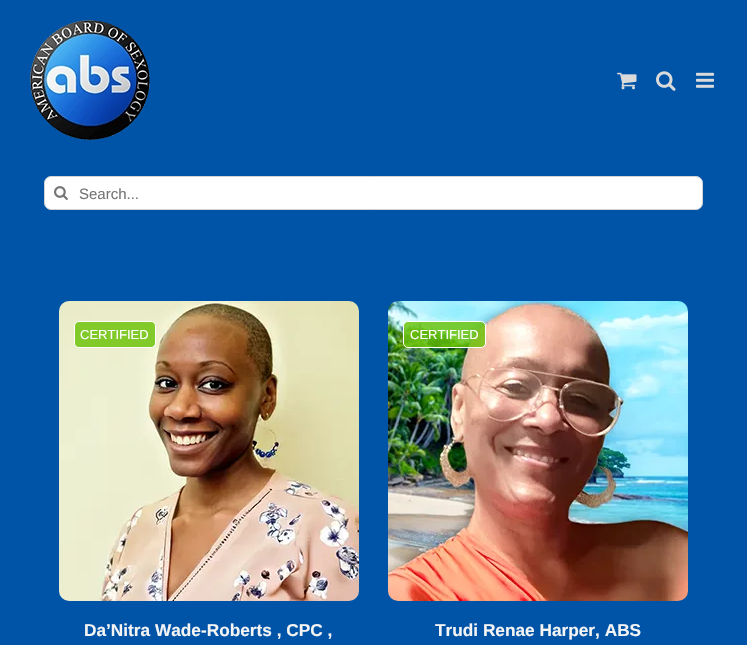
#include "include/core/SkBlurTypes.h"
#include "include/core/SkCanvas.h"
#include "include/core/SkData.h"
#include "include/core/SkFont.h"
#include "include/core/SkFontMgr.h"
#include "include/core/SkImage.h"
#include "include/core/SkMaskFilter.h"
#include "include/core/SkPaint.h"
#include "include/core/SkPathBuilder.h"
#include "include/core/SkTextBlob.h"
#include "include/effects/SkDashPathEffect.h"
#include "include/effects/SkGradientShader.h"
#include "include/utils/SkParsePath.h"

extern sk_sp<SkFontMgr> fontMgr;

void draw(SkCanvas* canvas) {
  SkPaint p;
  p.setAntiAlias(true);
  canvas->clear(SkColorSetRGB(0, 84, 168));
  canvas->drawImageRect(SkImages::DeferredFromEncodedData(SkData::MakeFromFileName("images/1.png")), SkRect::MakeLTRB(30, 20, 150, 140), SkSamplingOptions());
  canvas->drawImageRect(SkImages::DeferredFromEncodedData(SkData::MakeFromFileName("images/2.png")), SkRect::MakeLTRB(617, 72, 637, 90), SkSamplingOptions());
  canvas->drawImageRect(SkImages::DeferredFromEncodedData(SkData::MakeFromFileName("images/3.png")), SkRect::MakeLTRB(656, 71, 676, 91), SkSamplingOptions());
  canvas->drawImageRect(SkImages::DeferredFromEncodedData(SkData::MakeFromFileName("images/4.png")), SkRect::MakeLTRB(696, 72, 714, 88), SkSamplingOptions());
  p.setColor(SK_ColorWHITE);
  canvas->drawRoundRect(SkRect::MakeLTRB(44.5f, 176.5f, 702.5f, 209.5f), 6.5f, 6.5f, p);
  p.setStyle(SkPaint::kStroke_Style);
  p.setStrokeWidth(1);
  p.setColor(SkColorSetRGB(210, 210, 210));
  canvas->drawRoundRect(SkRect::MakeLTRB(44.5f, 176.5f, 702.5f, 209.5f), 6.5f, 6.5f, p);
  canvas->drawImageRect(SkImages::DeferredFromEncodedData(SkData::MakeFromFileName("images/5.png")), SkRect::MakeLTRB(54, 186, 68, 200), SkSamplingOptions());
  canvas->drawImageRect(SkImages::DeferredFromEncodedData(SkData::MakeFromFileName("images/6.png")), SkRect::MakeLTRB(59, 301, 359, 601), SkSamplingOptions());
  p.setStyle(SkPaint::kFill_Style);
  p.setColor(SkColorSetARGB(204, 103, 193, 0));
  canvas->drawRoundRect(SkRect::MakeLTRB(74.5f, 321.5f, 155.5f, 347.5f), 4.5f, 4.5f, p);
  p.setStyle(SkPaint::kStroke_Style);
  p.setColor(SK_ColorWHITE);
  canvas->drawRoundRect(SkRect::MakeLTRB(74.5f, 321.5f, 155.5f, 347.5f), 4.5f, 4.5f, p);
  canvas->drawImageRect(SkImages::DeferredFromEncodedData(SkData::MakeFromFileName("images/7.png")), SkRect::MakeLTRB(388, 301, 688, 601), SkSamplingOptions());
  p.setStyle(SkPaint::kFill_Style);
  p.setColor(SkColorSetARGB(204, 103, 193, 0));
  canvas->drawRoundRect(SkRect::MakeLTRB(403.5f, 321.5f, 485.5f, 347.5f), 4.5f, 4.5f, p);
  p.setStyle(SkPaint::kStroke_Style);
  p.setColor(SK_ColorWHITE);
  canvas->drawRoundRect(SkRect::MakeLTRB(403.5f, 321.5f, 485.5f, 347.5f), 4.5f, 4.5f, p);
  SkFont font1(fontMgr->matchFamilyStyle("Liberation Sans", SkFontStyle::Normal()), 15);
  font1.setSubpixel(true);
  p.setStyle(SkPaint::kFill_Style);
  p.setColor(SkColorSetRGB(117, 117, 117));
  canvas->drawString("Search...", 79, 199, font1, p);
  SkFont font2(fontMgr->matchFamilyStyle("Liberation Sans", SkFontStyle::Normal()), 13);
  font2.setSubpixel(true);
  p.setColor(SK_ColorWHITE);
  canvas->drawString("CERTIFIED", 80, 339, font2, p);
  SkFont font3(fontMgr->matchFamilyStyle("Liberation Sans", SkFontStyle::Bold()), 17.25f);
  font3.setSubpixel(true);
  p.setColor(SkColorSetRGB(244, 244, 244));
  canvas->drawString("Da’Nitra Wade-Roberts , CPC ,", 84, 636, font3, p);
  p.setColor(SK_ColorWHITE);
  canvas->drawString("CERTIFIED", 410, 339, font2, p);
  p.setColor(SkColorSetRGB(244, 244, 244));
  canvas->drawString("Trudi Renae Harper, ABS", 435, 636, font3, p);
}
